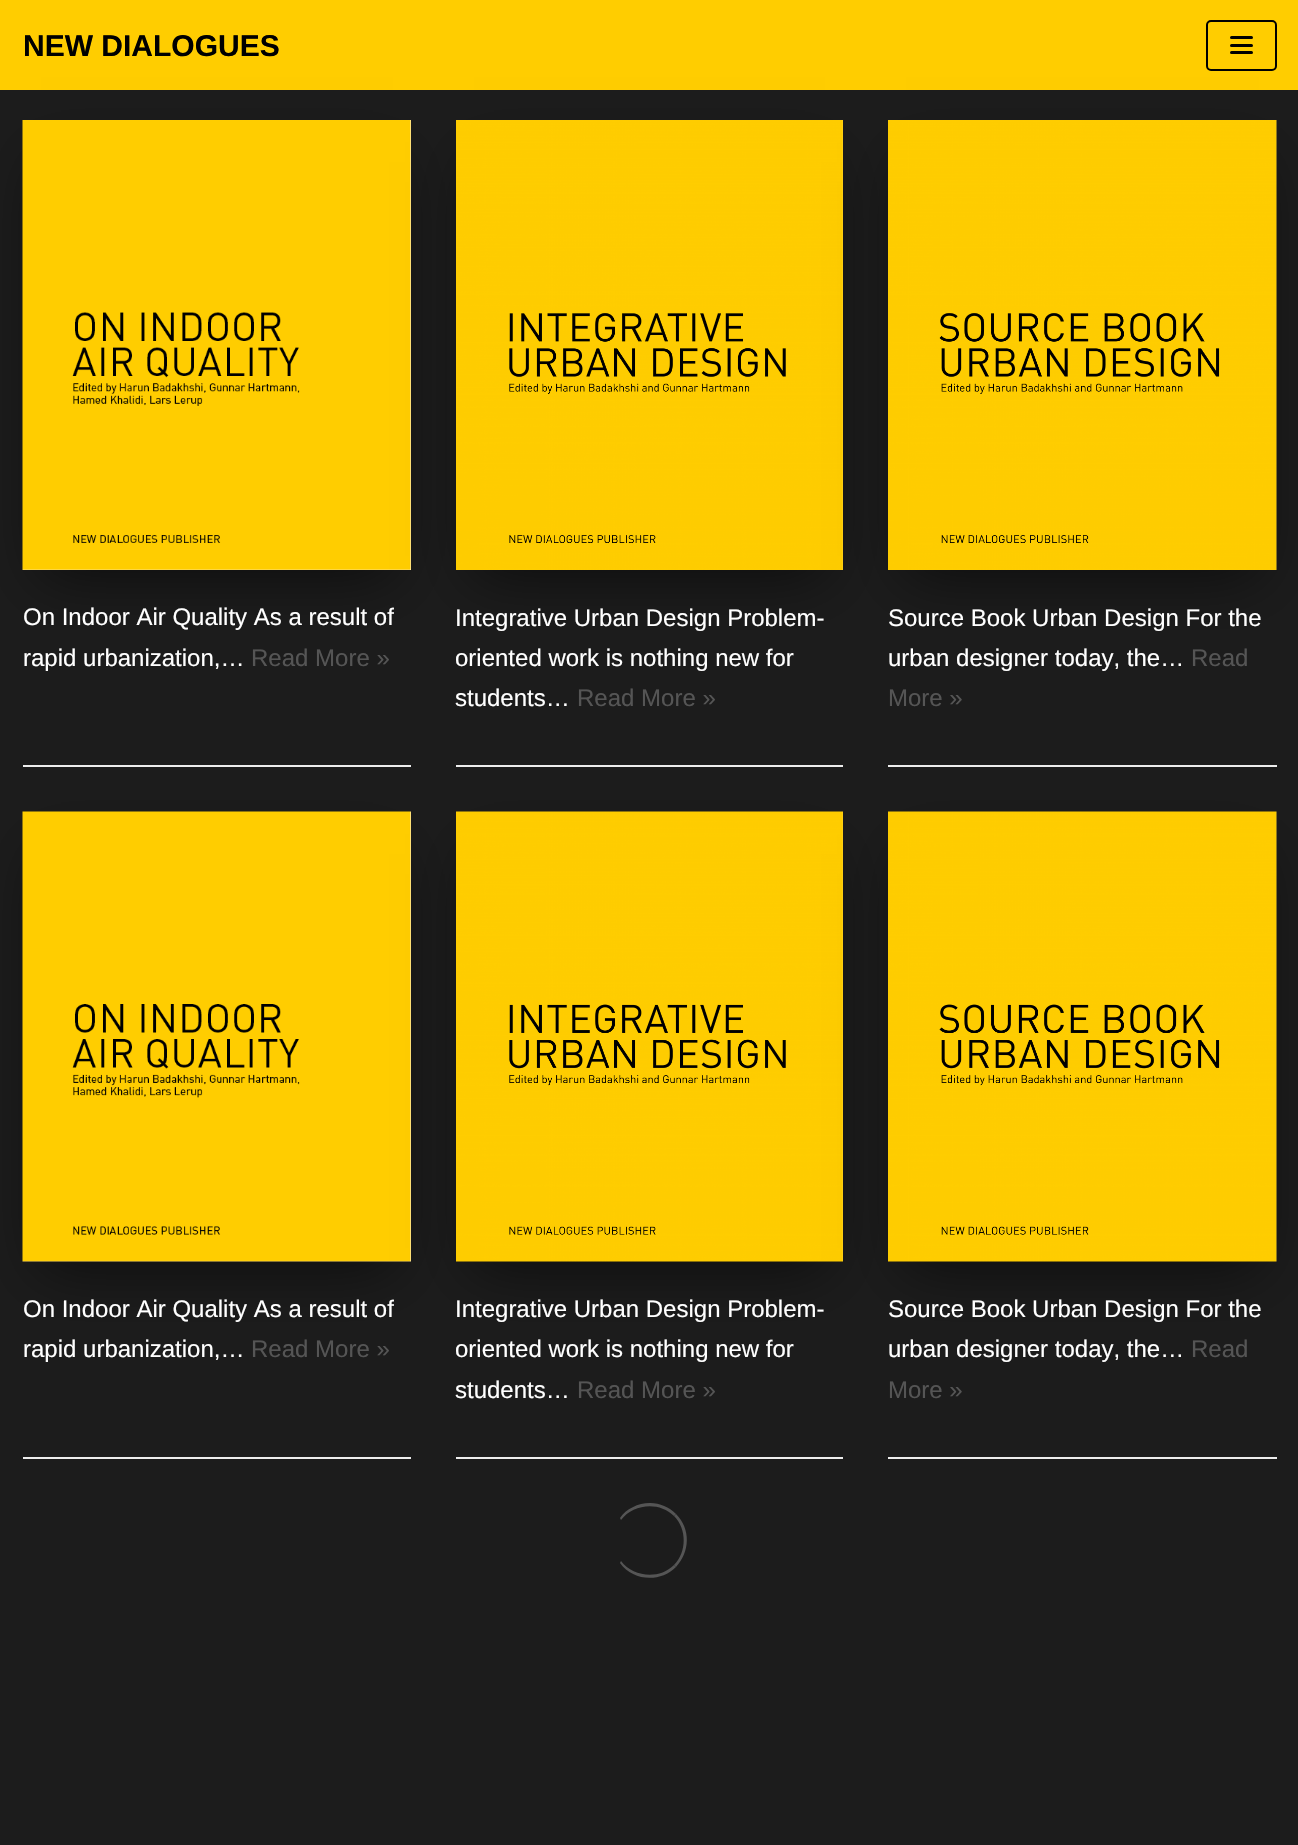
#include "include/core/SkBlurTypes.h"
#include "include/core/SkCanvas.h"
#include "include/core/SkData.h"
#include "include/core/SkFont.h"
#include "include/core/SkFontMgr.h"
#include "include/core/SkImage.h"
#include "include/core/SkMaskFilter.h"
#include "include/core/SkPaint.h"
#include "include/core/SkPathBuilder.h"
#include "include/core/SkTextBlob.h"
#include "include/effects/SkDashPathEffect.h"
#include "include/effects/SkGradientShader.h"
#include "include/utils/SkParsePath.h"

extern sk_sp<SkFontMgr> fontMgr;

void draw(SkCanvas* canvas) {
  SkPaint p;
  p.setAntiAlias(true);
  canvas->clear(SkColorSetRGB(28, 28, 28));
  p.setColor(SkColorSetRGB(255, 205, 0));
  canvas->drawRect(SkRect::MakeLTRB(0, 0, 1298, 90), p);
  p.setStyle(SkPaint::kStroke_Style);
  p.setStrokeWidth(2);
  p.setColor(SK_ColorBLACK);
  canvas->drawRoundRect(SkRect::MakeLTRB(1207, 21, 1276, 70), 4, 4, p);
  p.setStyle(SkPaint::kFill_Style);
  canvas->drawRoundRect(SkRect::MakeLTRB(1230, 36, 1253, 39), 1.5f, 1.5f, p);
  canvas->drawRoundRect(SkRect::MakeLTRB(1230, 44, 1253, 47), 1.5f, 1.5f, p);
  canvas->drawRoundRect(SkRect::MakeLTRB(1230, 51, 1253, 54), 1.5f, 1.5f, p);
  p.setColor(SkColorSetRGB(237, 237, 237));
  canvas->drawRect(SkRect::MakeLTRB(23, 765, 411, 767), p);
  p.setColor(SkColorSetARGB(143, 0, 0, 0));
  p.setMaskFilter(SkMaskFilter::MakeBlur(kNormal_SkBlurStyle, 28.5f));
  canvas->drawRect(SkRect::MakeLTRB(41, 162, 393, 576), p);
  p.setMaskFilter(nullptr);
  canvas->drawImageRect(SkImages::DeferredFromEncodedData(SkData::MakeFromFileName("images/1.png")), SkRect::MakeLTRB(22, 120, 411, 570), SkSamplingOptions());
  p.setColor(SkColorSetRGB(237, 237, 237));
  canvas->drawRect(SkRect::MakeLTRB(456, 765, 843, 767), p);
  p.setColor(SkColorSetARGB(143, 0, 0, 0));
  p.setMaskFilter(SkMaskFilter::MakeBlur(kNormal_SkBlurStyle, 28.5f));
  canvas->drawRect(SkRect::MakeLTRB(474, 162, 825, 576), p);
  p.setMaskFilter(nullptr);
  canvas->drawImageRect(SkImages::DeferredFromEncodedData(SkData::MakeFromFileName("images/2.png")), SkRect::MakeLTRB(456, 120, 843, 570), SkSamplingOptions());
  p.setColor(SkColorSetRGB(237, 237, 237));
  canvas->drawRect(SkRect::MakeLTRB(888, 765, 1277, 767), p);
  p.setColor(SkColorSetARGB(143, 0, 0, 0));
  p.setMaskFilter(SkMaskFilter::MakeBlur(kNormal_SkBlurStyle, 28.5f));
  canvas->drawRect(SkRect::MakeLTRB(906, 162, 1259, 576), p);
  p.setMaskFilter(nullptr);
  canvas->drawImageRect(SkImages::DeferredFromEncodedData(SkData::MakeFromFileName("images/3.png")), SkRect::MakeLTRB(888, 120, 1277, 570), SkSamplingOptions());
  p.setColor(SkColorSetRGB(237, 237, 237));
  canvas->drawRect(SkRect::MakeLTRB(23, 1457, 411, 1459), p);
  p.setColor(SkColorSetARGB(143, 0, 0, 0));
  p.setMaskFilter(SkMaskFilter::MakeBlur(kNormal_SkBlurStyle, 28.5f));
  canvas->drawRect(SkRect::MakeLTRB(41, 854, 393, 1268), p);
  p.setMaskFilter(nullptr);
  canvas->drawImageRect(SkImages::DeferredFromEncodedData(SkData::MakeFromFileName("images/4.png")), SkRect::MakeLTRB(22, 811, 411, 1262), SkSamplingOptions());
  p.setColor(SkColorSetRGB(237, 237, 237));
  canvas->drawRect(SkRect::MakeLTRB(456, 1457, 843, 1459), p);
  p.setColor(SkColorSetARGB(143, 0, 0, 0));
  p.setMaskFilter(SkMaskFilter::MakeBlur(kNormal_SkBlurStyle, 28.5f));
  canvas->drawRect(SkRect::MakeLTRB(474, 854, 825, 1268), p);
  p.setMaskFilter(nullptr);
  canvas->drawImageRect(SkImages::DeferredFromEncodedData(SkData::MakeFromFileName("images/5.png")), SkRect::MakeLTRB(456, 811, 843, 1262), SkSamplingOptions());
  p.setColor(SkColorSetRGB(237, 237, 237));
  canvas->drawRect(SkRect::MakeLTRB(888, 1457, 1277, 1459), p);
  p.setColor(SkColorSetARGB(143, 0, 0, 0));
  p.setMaskFilter(SkMaskFilter::MakeBlur(kNormal_SkBlurStyle, 28.5f));
  canvas->drawRect(SkRect::MakeLTRB(906, 854, 1259, 1268), p);
  p.setMaskFilter(nullptr);
  canvas->drawImageRect(SkImages::DeferredFromEncodedData(SkData::MakeFromFileName("images/6.png")), SkRect::MakeLTRB(888, 811, 1277, 1262), SkSamplingOptions());
  p.setColor(SkColorSetRGB(85, 85, 85));
  canvas->drawPath(SkPathBuilder().moveTo(650, 1503).cubicTo(638, 1503, 626, 1509, 620, 1518).lineTo(621, 1520).cubicTo(633, 1504, 659, 1501, 674, 1516).lineTo(676, 1514).cubicTo(669, 1507, 660, 1503, 650, 1503).close().detach(), p);
  canvas->drawPath(SkPathBuilder().moveTo(676, 1514).cubicTo(691, 1529, 690, 1552, 676, 1567).lineTo(674, 1565).cubicTo(687, 1552, 687, 1529, 674, 1516).close().detach(), p);
  canvas->drawPath(SkPathBuilder().moveTo(676, 1567).cubicTo(660, 1583, 633, 1581, 620, 1563).lineTo(621, 1561).cubicTo(633, 1577, 659, 1580, 674, 1565).close().detach(), p);
  SkFont font1(fontMgr->matchFamilyStyle("Liberation Sans", SkFontStyle::Bold()), 30);
  font1.setSubpixel(true);
  p.setColor(SK_ColorBLACK);
  canvas->drawString("NEW DIALOGUES", 23, 56, font1, p);
  SkFont font2(fontMgr->matchFamilyStyle("Liberation Sans", SkFontStyle::Normal()), 24);
  font2.setSubpixel(true);
  p.setColor(SK_ColorWHITE);
  canvas->drawString("On Indoor Air Quality As a result of", 23, 625, font2, p);
  canvas->drawString("rapid urbanization,…", 23, 666, font2, p);
  p.setColor(SkColorSetRGB(85, 85, 85));
  canvas->drawString("Read More »", 251, 666, font2, p);
  p.setColor(SK_ColorWHITE);
  canvas->drawString("Integrative Urban Design Problem-", 455, 626, font2, p);
  canvas->drawString("oriented work is nothing new for", 455, 666, font2, p);
  canvas->drawString("students…", 455, 706, font2, p);
  p.setColor(SkColorSetRGB(85, 85, 85));
  canvas->drawString("Read More »", 577, 706, font2, p);
  p.setColor(SK_ColorWHITE);
  canvas->drawString("Source Book Urban Design For the", 888, 626, font2, p);
  canvas->drawString("urban designer today, the…", 888, 666, font2, p);
  p.setColor(SkColorSetRGB(85, 85, 85));
  canvas->drawString("Read", 1191, 666, font2, p);
  canvas->drawString("More »", 888, 706, font2, p);
  p.setColor(SK_ColorWHITE);
  canvas->drawString("On Indoor Air Quality As a result of", 23, 1317, font2, p);
  canvas->drawString("rapid urbanization,…", 23, 1357, font2, p);
  p.setColor(SkColorSetRGB(85, 85, 85));
  canvas->drawString("Read More »", 251, 1357, font2, p);
  p.setColor(SK_ColorWHITE);
  canvas->drawString("Integrative Urban Design Problem-", 455, 1317, font2, p);
  canvas->drawString("oriented work is nothing new for", 455, 1357, font2, p);
  canvas->drawString("students…", 455, 1398, font2, p);
  p.setColor(SkColorSetRGB(85, 85, 85));
  canvas->drawString("Read More »", 577, 1398, font2, p);
  p.setColor(SK_ColorWHITE);
  canvas->drawString("Source Book Urban Design For the", 888, 1317, font2, p);
  canvas->drawString("urban designer today, the…", 888, 1357, font2, p);
  p.setColor(SkColorSetRGB(85, 85, 85));
  canvas->drawString("Read", 1191, 1357, font2, p);
  canvas->drawString("More »", 888, 1398, font2, p);
}
